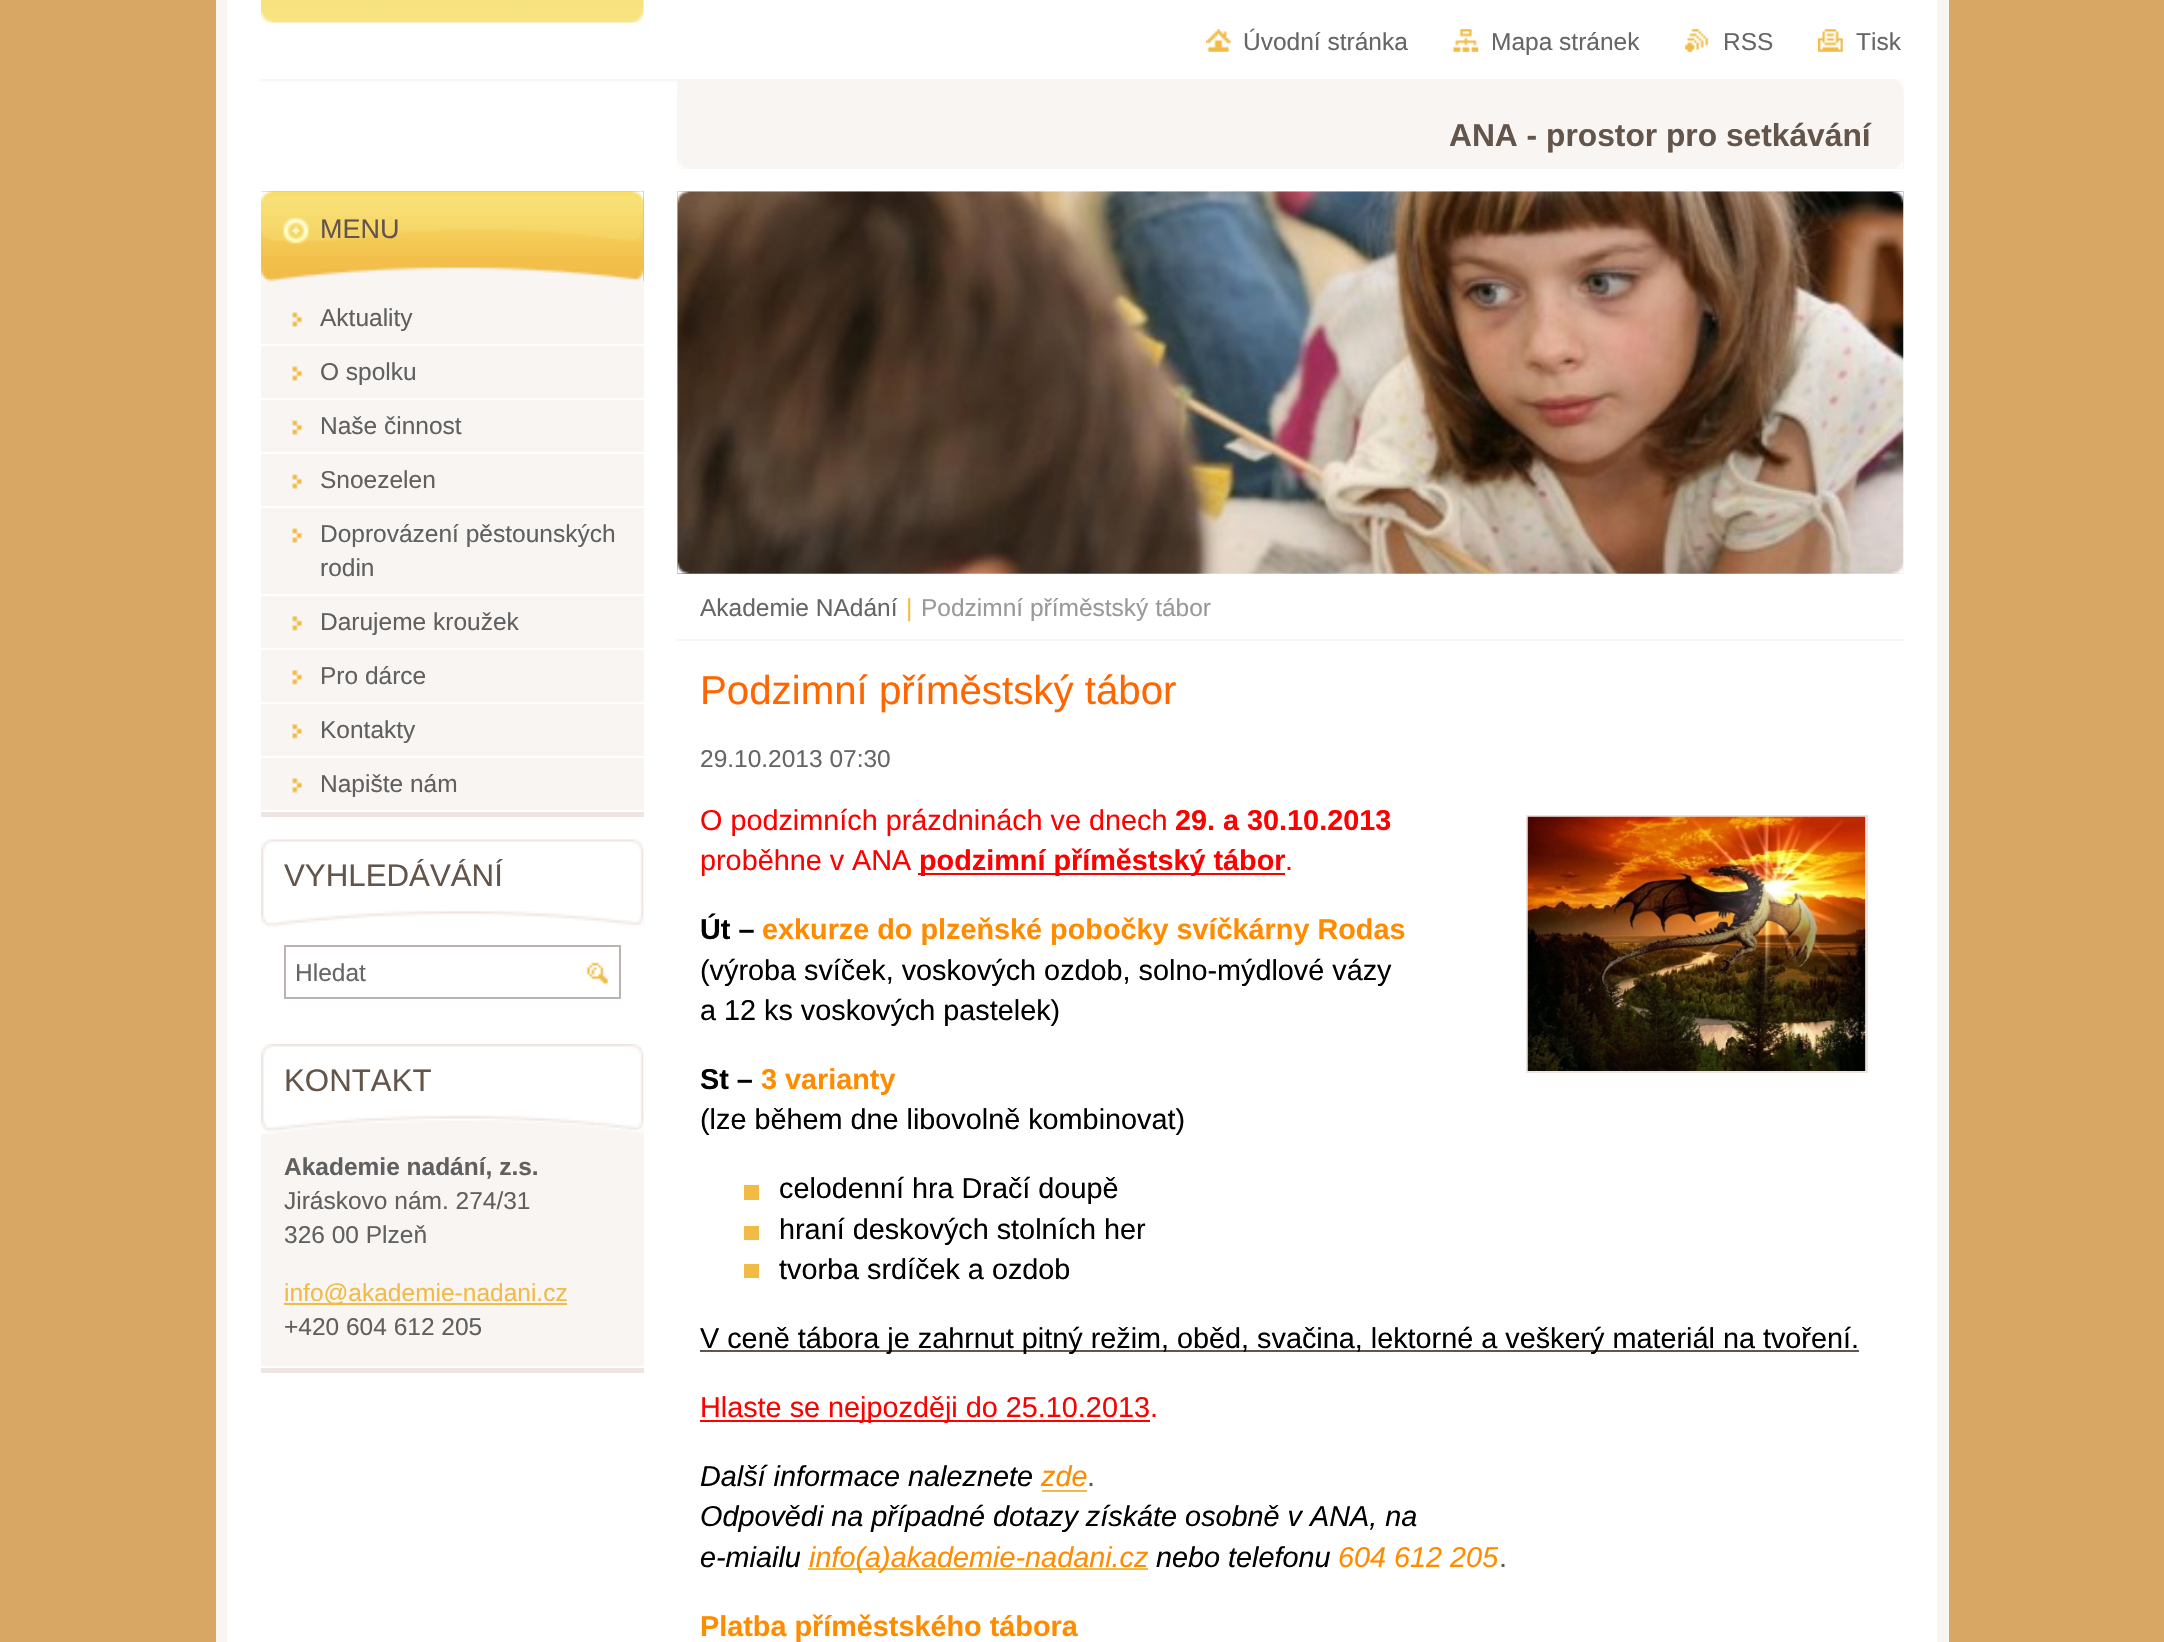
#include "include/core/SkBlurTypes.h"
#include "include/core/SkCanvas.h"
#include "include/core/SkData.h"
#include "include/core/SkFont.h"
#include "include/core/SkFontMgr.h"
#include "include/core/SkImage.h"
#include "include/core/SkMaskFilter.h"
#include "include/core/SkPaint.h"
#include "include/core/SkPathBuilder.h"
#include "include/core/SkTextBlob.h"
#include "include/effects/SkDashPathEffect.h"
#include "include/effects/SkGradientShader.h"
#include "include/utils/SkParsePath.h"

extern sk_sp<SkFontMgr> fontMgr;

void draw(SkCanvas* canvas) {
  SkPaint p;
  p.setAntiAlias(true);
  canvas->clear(SkColorSetRGB(216, 167, 100));
  p.setColor(SK_ColorWHITE);
  canvas->drawRect(SkRect::MakeLTRB(227, 0, 1937, 1642), p);
  canvas->drawImageRect(SkImages::DeferredFromEncodedData(SkData::MakeFromFileName("images/1.png")), SkRect::MakeLTRB(261, 0, 644, 23), SkSamplingOptions());
  p.setColor(SkColorSetRGB(248, 245, 243));
  canvas->drawRect(SkRect::MakeLTRB(1937, 0, 1949, 1642), p);
  canvas->drawRect(SkRect::MakeLTRB(216, 0, 227, 1642), p);
  canvas->drawImageRect(SkImages::DeferredFromEncodedData(SkData::MakeFromFileName("images/2.png")), SkRect::MakeLTRB(1206, 29, 1231, 52), SkSamplingOptions());
  canvas->drawImageRect(SkImages::DeferredFromEncodedData(SkData::MakeFromFileName("images/3.png")), SkRect::MakeLTRB(1453, 29, 1479, 52), SkSamplingOptions());
  canvas->drawImageRect(SkImages::DeferredFromEncodedData(SkData::MakeFromFileName("images/4.png")), SkRect::MakeLTRB(1685, 29, 1709, 52), SkSamplingOptions());
  canvas->drawImageRect(SkImages::DeferredFromEncodedData(SkData::MakeFromFileName("images/5.png")), SkRect::MakeLTRB(1818, 29, 1843, 52), SkSamplingOptions());
  canvas->drawImageRect(SkImages::DeferredFromEncodedData(SkData::MakeFromFileName("images/6.png")), SkRect::MakeLTRB(261, 79, 1904, 92), SkSamplingOptions());
  canvas->drawRect(SkRect::MakeLTRB(677, 92, 1904, 169), p);
  canvas->drawImageRect(SkImages::DeferredFromEncodedData(SkData::MakeFromFileName("images/7.png")), SkRect::MakeLTRB(677, 161, 1903, 169), SkSamplingOptions());
  p.setColor(SkColorSetRGB(238, 229, 224));
  canvas->drawRect(SkRect::MakeLTRB(261, 812, 644, 817), p);
  p.setColor(SkColorSetRGB(248, 245, 243));
  canvas->drawRect(SkRect::MakeLTRB(261, 281, 644, 810), p);
  p.setColor(SkColorSetRGB(242, 191, 74));
  canvas->drawRect(SkRect::MakeLTRB(261, 191, 644, 281), p);
  canvas->drawImageRect(SkImages::DeferredFromEncodedData(SkData::MakeFromFileName("images/8.png")), SkRect::MakeLTRB(261, 191, 644, 256), SkSamplingOptions());
  canvas->drawImageRect(SkImages::DeferredFromEncodedData(SkData::MakeFromFileName("images/9.png")), SkRect::MakeLTRB(261, 267, 644, 282), SkSamplingOptions());
  canvas->drawImageRect(SkImages::DeferredFromEncodedData(SkData::MakeFromFileName("images/10.png")), SkRect::MakeLTRB(292, 312, 303, 327), SkSamplingOptions());
  p.setColor(SK_ColorWHITE);
  canvas->drawRect(SkRect::MakeLTRB(261, 344, 644, 346), p);
  canvas->drawImageRect(SkImages::DeferredFromEncodedData(SkData::MakeFromFileName("images/10.png")), SkRect::MakeLTRB(292, 366, 303, 381), SkSamplingOptions());
  canvas->drawRect(SkRect::MakeLTRB(261, 398, 644, 400), p);
  canvas->drawImageRect(SkImages::DeferredFromEncodedData(SkData::MakeFromFileName("images/10.png")), SkRect::MakeLTRB(292, 420, 303, 435), SkSamplingOptions());
  canvas->drawRect(SkRect::MakeLTRB(261, 452, 644, 454), p);
  canvas->drawImageRect(SkImages::DeferredFromEncodedData(SkData::MakeFromFileName("images/10.png")), SkRect::MakeLTRB(292, 474, 303, 489), SkSamplingOptions());
  canvas->drawRect(SkRect::MakeLTRB(261, 506, 644, 508), p);
  canvas->drawImageRect(SkImages::DeferredFromEncodedData(SkData::MakeFromFileName("images/10.png")), SkRect::MakeLTRB(292, 528, 303, 543), SkSamplingOptions());
  canvas->drawRect(SkRect::MakeLTRB(261, 594, 644, 596), p);
  canvas->drawImageRect(SkImages::DeferredFromEncodedData(SkData::MakeFromFileName("images/11.png")), SkRect::MakeLTRB(292, 616, 303, 631), SkSamplingOptions());
  canvas->drawRect(SkRect::MakeLTRB(261, 648, 644, 650), p);
  canvas->drawImageRect(SkImages::DeferredFromEncodedData(SkData::MakeFromFileName("images/11.png")), SkRect::MakeLTRB(292, 670, 303, 685), SkSamplingOptions());
  canvas->drawRect(SkRect::MakeLTRB(261, 702, 644, 704), p);
  canvas->drawImageRect(SkImages::DeferredFromEncodedData(SkData::MakeFromFileName("images/11.png")), SkRect::MakeLTRB(292, 724, 303, 739), SkSamplingOptions());
  canvas->drawRect(SkRect::MakeLTRB(261, 756, 644, 758), p);
  canvas->drawImageRect(SkImages::DeferredFromEncodedData(SkData::MakeFromFileName("images/11.png")), SkRect::MakeLTRB(292, 778, 303, 793), SkSamplingOptions());
  canvas->drawImageRect(SkImages::DeferredFromEncodedData(SkData::MakeFromFileName("images/12.png")), SkRect::MakeLTRB(261, 839, 644, 930), SkSamplingOptions());
  canvas->drawImageRect(SkImages::DeferredFromEncodedData(SkData::MakeFromFileName("images/13.png")), SkRect::MakeLTRB(261, 907, 644, 929), SkSamplingOptions());
  p.setStyle(SkPaint::kStroke_Style);
  p.setStrokeWidth(2);
  p.setColor(SkColorSetRGB(186, 179, 175));
  canvas->drawRect(SkRect::MakeLTRB(285, 946, 620, 998), p);
  canvas->drawImageRect(SkImages::DeferredFromEncodedData(SkData::MakeFromFileName("images/14.png")), SkRect::MakeLTRB(586, 962, 609, 984), SkSamplingOptions());
  p.setStyle(SkPaint::kFill_Style);
  p.setColor(SkColorSetRGB(238, 229, 224));
  canvas->drawRect(SkRect::MakeLTRB(261, 1368, 644, 1373), p);
  p.setColor(SkColorSetRGB(248, 245, 243));
  canvas->drawRect(SkRect::MakeLTRB(261, 1134, 644, 1366), p);
  canvas->drawImageRect(SkImages::DeferredFromEncodedData(SkData::MakeFromFileName("images/15.png")), SkRect::MakeLTRB(261, 1044, 644, 1134), SkSamplingOptions());
  canvas->drawImageRect(SkImages::DeferredFromEncodedData(SkData::MakeFromFileName("images/16.png")), SkRect::MakeLTRB(261, 1112, 644, 1134), SkSamplingOptions());
  p.setColor(SkColorSetRGB(241, 187, 70));
  canvas->drawRect(SkRect::MakeLTRB(284, 1303, 387, 1305), p);
  canvas->drawRect(SkRect::MakeLTRB(387, 1303, 567, 1305), p);
  canvas->drawImageRect(SkImages::DeferredFromEncodedData(SkData::MakeFromFileName("images/17.png")), SkRect::MakeLTRB(677, 191, 1904, 574), SkSamplingOptions());
  canvas->drawImageRect(SkImages::DeferredFromEncodedData(SkData::MakeFromFileName("images/18.png")), SkRect::MakeLTRB(677, 191, 1904, 574), SkSamplingOptions());
  p.setColor(SkColorSetRGB(248, 245, 243));
  canvas->drawRect(SkRect::MakeLTRB(677, 639, 1904, 641), p);
  p.setStyle(SkPaint::kStroke_Style);
  p.setColor(SkColorSetRGB(238, 229, 224));
  canvas->drawRect(SkRect::MakeLTRB(1527, 816, 1867, 1072), p);
  canvas->drawImageRect(SkImages::DeferredFromEncodedData(SkData::MakeFromFileName("images/19.png")), SkRect::MakeLTRB(1527, 816, 1866, 1071), SkSamplingOptions());
  p.setStyle(SkPaint::kFill_Style);
  p.setColor(SkColorSetRGB(255, 0, 0));
  canvas->drawRect(SkRect::MakeLTRB(918, 873, 1285, 875), p);
  p.setColor(SkColorSetRGB(241, 187, 70));
  canvas->drawRect(SkRect::MakeLTRB(744, 1185, 759, 1200), p);
  canvas->drawRect(SkRect::MakeLTRB(744, 1226, 759, 1240), p);
  canvas->drawRect(SkRect::MakeLTRB(744, 1264, 759, 1278), p);
  p.setColor(SkColorSetRGB(100, 85, 75));
  canvas->drawRect(SkRect::MakeLTRB(700, 1350, 1859, 1352), p);
  p.setColor(SkColorSetRGB(255, 0, 0));
  canvas->drawRect(SkRect::MakeLTRB(700, 1420, 1150, 1422), p);
  p.setColor(SkColorSetRGB(241, 187, 70));
  canvas->drawRect(SkRect::MakeLTRB(1042, 1490, 1087, 1492), p);
  canvas->drawRect(SkRect::MakeLTRB(808, 1568, 1148, 1570), p);
  SkFont font1(fontMgr->matchFamilyStyle("Liberation Sans", SkFontStyle::Normal()), 24.5f);
  font1.setSubpixel(true);
  p.setColor(SkColorSetRGB(102, 102, 102));
  canvas->drawString("Úvodní stránka", 1243, 50, font1, p);
  canvas->drawString("Mapa stránek", 1491, 50, font1, p);
  canvas->drawString("RSS", 1723, 50, font1, p);
  canvas->drawString("Tisk", 1856, 50, font1, p);
  SkFont font2(fontMgr->matchFamilyStyle("Liberation Sans", SkFontStyle::Bold()), 31.75f);
  font2.setSubpixel(true);
  p.setColor(SkColorSetRGB(100, 85, 75));
  canvas->drawString("ANA - prostor pro setkávání", 1449, 146, font2, p);
  SkFont font3(fontMgr->matchFamilyStyle("Liberation Sans", SkFontStyle::Normal()), 27);
  font3.setSubpixel(true);
  canvas->drawString("MENU", 320, 238, font3, p);
  p.setColor(SkColorSetRGB(96, 96, 96));
  canvas->drawString("Aktuality", 320, 326, font1, p);
  canvas->drawString("O spolku", 320, 380, font1, p);
  canvas->drawString("Naše činnost", 320, 434, font1, p);
  canvas->drawString("Snoezelen", 320, 488, font1, p);
  canvas->drawString("Doprovázení pěstounských", 320, 542, font1, p);
  canvas->drawString("rodin", 320, 576, font1, p);
  canvas->drawString("Darujeme kroužek", 320, 630, font1, p);
  canvas->drawString("Pro dárce", 320, 684, font1, p);
  canvas->drawString("Kontakty", 320, 738, font1, p);
  canvas->drawString("Napište nám", 320, 792, font1, p);
  SkFont font4(fontMgr->matchFamilyStyle("Liberation Sans", SkFontStyle::Normal()), 31.25f);
  font4.setSubpixel(true);
  p.setColor(SkColorSetRGB(100, 85, 75));
  canvas->drawString("VYHLEDÁVÁNÍ", 284, 886, font4, p);
  p.setColor(SkColorSetRGB(102, 102, 102));
  canvas->drawString("Hledat", 295, 981, font1, p);
  p.setColor(SkColorSetRGB(100, 85, 75));
  canvas->drawString("KONTAKT", 284, 1091, font4, p);
  SkFont font5(fontMgr->matchFamilyStyle("Liberation Sans", SkFontStyle::Bold()), 24.5f);
  font5.setSubpixel(true);
  p.setColor(SkColorSetRGB(96, 96, 96));
  canvas->drawString("Akademie nadání, z.s.", 284, 1175, font5, p);
  canvas->drawString("Jiráskovo nám. 274/31", 284, 1209, font1, p);
  canvas->drawString("326 00 Plzeň", 284, 1243, font1, p);
  p.setColor(SkColorSetRGB(241, 187, 70));
  canvas->drawString("info@akademie-nadani.cz", 284, 1301, font1, p);
  p.setColor(SkColorSetRGB(96, 96, 96));
  canvas->drawString("+420 604 612 205", 284, 1335, font1, p);
  p.setColor(SkColorSetRGB(102, 102, 102));
  canvas->drawString("Akademie NAdání", 700, 616, font1, p);
  p.setColor(SkColorSetRGB(241, 187, 70));
  canvas->drawString("|", 906, 616, font1, p);
  p.setColor(SkColorSetRGB(153, 153, 153));
  canvas->drawString("Podzimní příměstský tábor", 921, 616, font1, p);
  SkFont font6(fontMgr->matchFamilyStyle("Liberation Sans", SkFontStyle::Normal()), 40.25f);
  font6.setSubpixel(true);
  p.setColor(SkColorSetRGB(255, 102, 0));
  canvas->drawString("Podzimní příměstský tábor", 700, 704, font6, p);
  p.setColor(SkColorSetRGB(102, 102, 102));
  canvas->drawString("29.10.2013 07:30", 700, 767, font1, p);
  SkFont font7(fontMgr->matchFamilyStyle("Liberation Sans", SkFontStyle::Normal()), 28.8f);
  font7.setSubpixel(true);
  p.setColor(SkColorSetRGB(255, 0, 0));
  canvas->drawString("O podzimních prázdninách ve dnech", 700, 830, font7, p);
  SkFont font8(fontMgr->matchFamilyStyle("Liberation Sans", SkFontStyle::Bold()), 28.8f);
  font8.setSubpixel(true);
  canvas->drawString("29. a 30.10.2013", 1175, 830, font8, p);
  canvas->drawString("proběhne v ANA", 700, 870, font7, p);
  canvas->drawString("podzimní příměstský tábor", 919, 870, font8, p);
  canvas->drawString(".", 1285, 870, font7, p);
  p.setColor(SK_ColorBLACK);
  canvas->drawString("Út –", 700, 939, font8, p);
  p.setColor(SkColorSetRGB(255, 140, 0));
  canvas->drawString("exkurze do plzeňské pobočky svíčkárny Rodas", 762, 939, font8, p);
  p.setColor(SK_ColorBLACK);
  canvas->drawString("(výroba svíček, voskových ozdob, solno-mýdlové vázy", 700, 980, font7, p);
  canvas->drawString("a 12 ks voskových pastelek)", 700, 1020, font7, p);
  canvas->drawString("St –", 700, 1089, font8, p);
  p.setColor(SkColorSetRGB(255, 140, 0));
  canvas->drawString("3 varianty", 761, 1089, font8, p);
  p.setColor(SK_ColorBLACK);
  canvas->drawString("(lze během dne libovolně kombinovat)", 700, 1129, font7, p);
  canvas->drawString("celodenní hra Dračí doupě", 779, 1198, font7, p);
  canvas->drawString("hraní deskových stolních her", 779, 1239, font7, p);
  canvas->drawString("tvorba srdíček a ozdob", 779, 1279, font7, p);
  canvas->drawString("V ceně tábora je zahrnut pitný režim, oběd, svačina, lektorné a veškerý materiál na tvoření.", 700, 1348, font7, p);
  p.setColor(SkColorSetRGB(255, 0, 0));
  canvas->drawString("Hlaste se nejpozději do 25.10.2013.", 700, 1417, font7, p);
  SkFont font9(fontMgr->matchFamilyStyle("Liberation Sans", SkFontStyle::Italic()), 28.8f);
  font9.setSubpixel(true);
  p.setColor(SK_ColorBLACK);
  canvas->drawString("Další informace naleznete", 700, 1486, font9, p);
  p.setColor(SkColorSetRGB(255, 140, 0));
  canvas->drawString("zde", 1041, 1486, font9, p);
  p.setColor(SkColorSetRGB(100, 85, 75));
  canvas->drawString(".", 1087, 1486, font7, p);
  p.setColor(SK_ColorBLACK);
  canvas->drawString("Odpovědi na případné dotazy získáte osobně v ANA, na", 700, 1526, font9, p);
  canvas->drawString("e-miailu", 700, 1567, font9, p);
  p.setColor(SkColorSetRGB(255, 140, 0));
  canvas->drawString("info(a)akademie-nadani.cz", 809, 1567, font9, p);
  p.setColor(SK_ColorBLACK);
  canvas->drawString("nebo telefonu", 1156, 1567, font9, p);
  p.setColor(SkColorSetRGB(255, 140, 0));
  canvas->drawString("604 612 205", 1338, 1567, font9, p);
  p.setColor(SkColorSetRGB(100, 85, 75));
  canvas->drawString(".", 1499, 1567, font7, p);
  p.setColor(SkColorSetRGB(255, 140, 0));
  canvas->drawString("Platba příměstského tábora", 700, 1636, font8, p);
}
